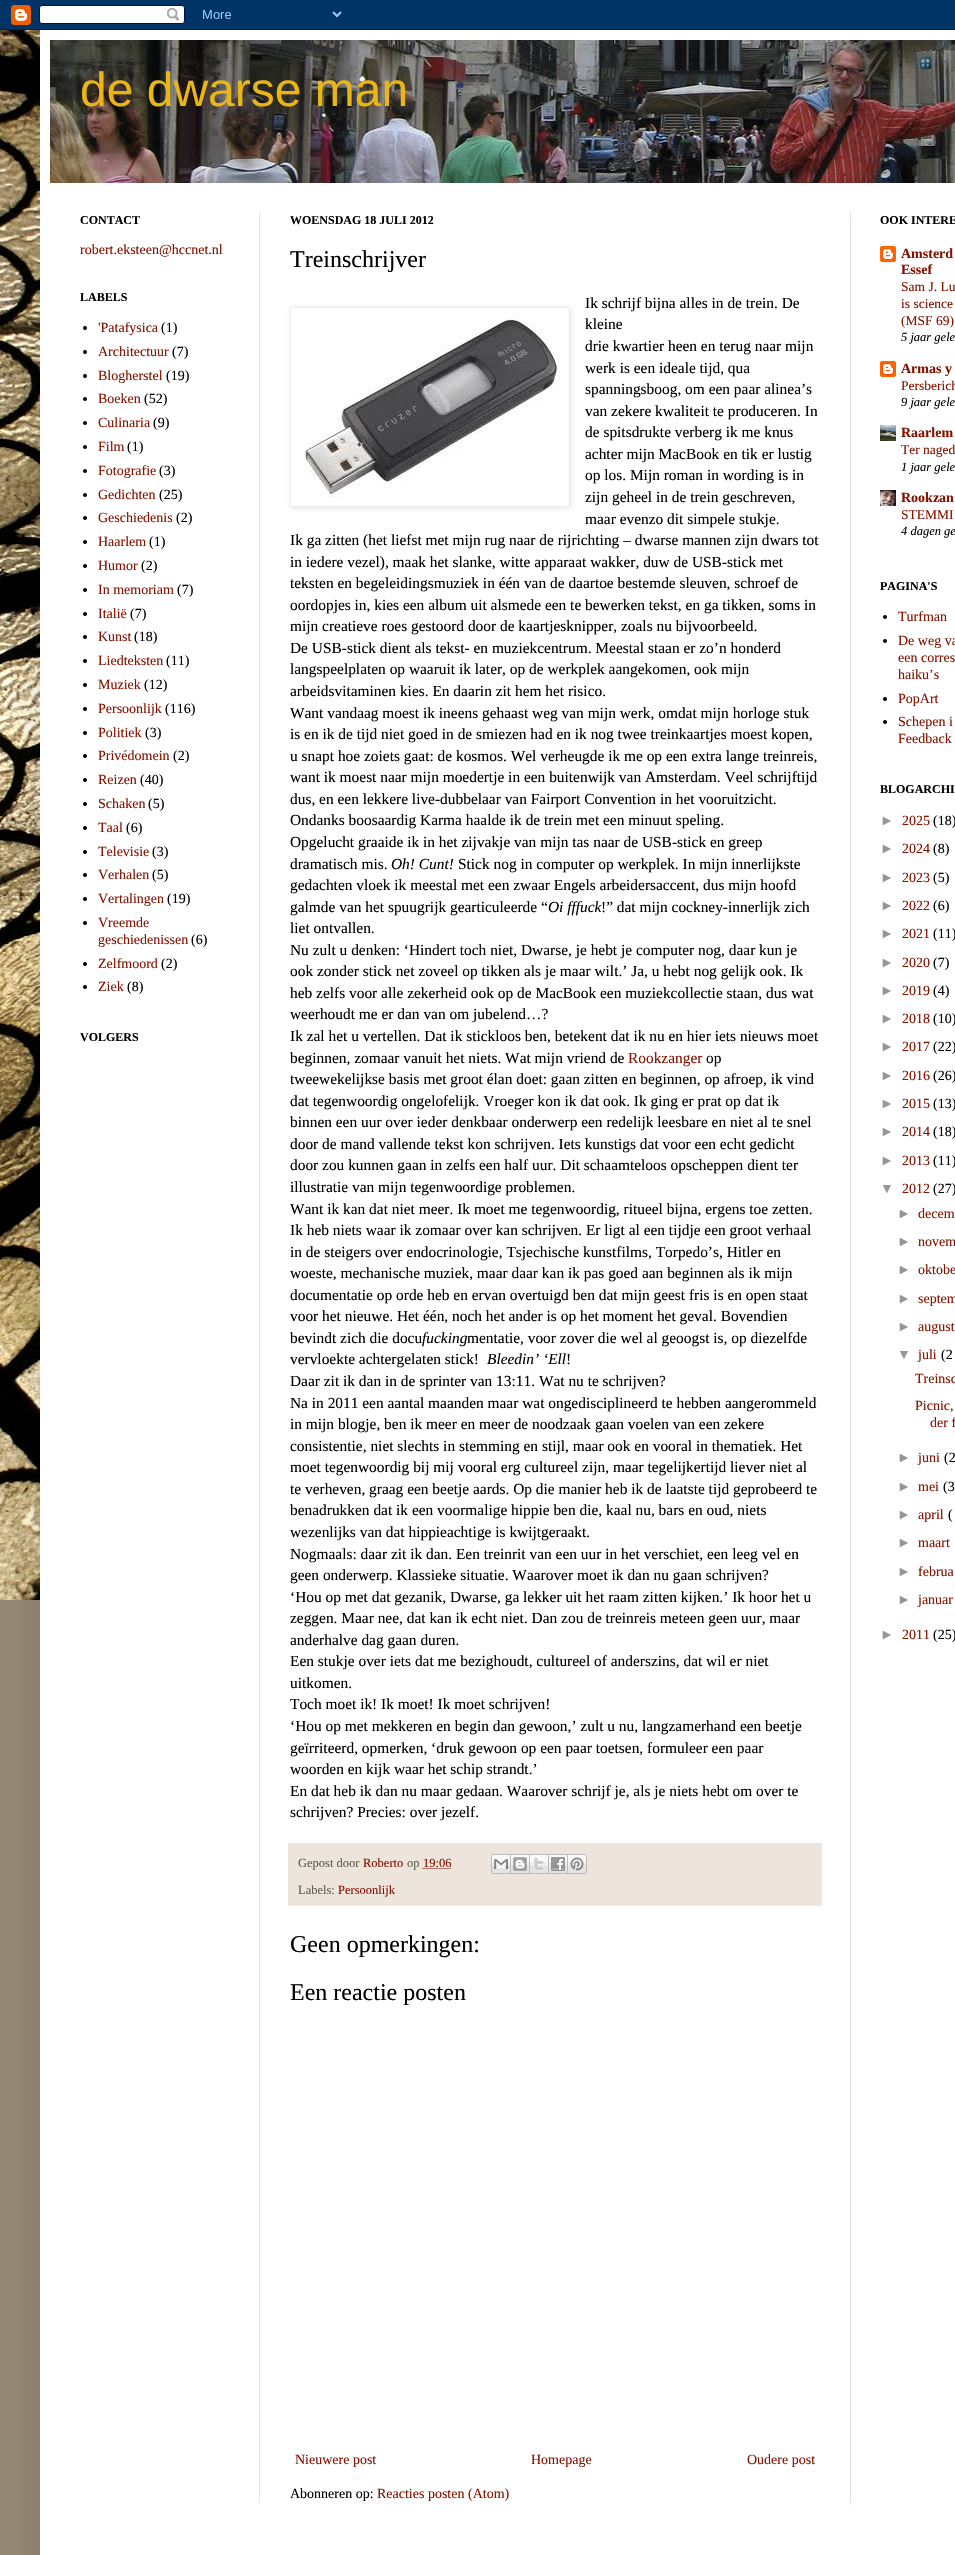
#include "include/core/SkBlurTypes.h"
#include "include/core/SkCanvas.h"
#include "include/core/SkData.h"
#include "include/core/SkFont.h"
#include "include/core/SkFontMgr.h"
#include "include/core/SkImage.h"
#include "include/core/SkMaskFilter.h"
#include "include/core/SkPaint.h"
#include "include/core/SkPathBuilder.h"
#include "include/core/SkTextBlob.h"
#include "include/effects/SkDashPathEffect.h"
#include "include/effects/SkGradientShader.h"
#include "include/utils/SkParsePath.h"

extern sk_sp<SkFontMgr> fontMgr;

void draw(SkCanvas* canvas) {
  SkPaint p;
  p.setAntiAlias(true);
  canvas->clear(SkColorSetRGB(150, 137, 118));
  canvas->drawImageRect(SkImages::DeferredFromEncodedData(SkData::MakeFromFileName("images/2.png")), SkRect::MakeLTRB(0, 30, 40, 1600), SkSamplingOptions());
  p.setColor(SkColorSetARGB(38, 0, 0, 0));
  p.setMaskFilter(SkMaskFilter::MakeBlur(kNormal_SkBlurStyle, 20));
  canvas->drawRect(SkRect::MakeLTRB(40, 30, 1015, 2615), p);
  p.setMaskFilter(nullptr);
  canvas->drawImageRect(SkImages::DeferredFromEncodedData(SkData::MakeFromFileName("images/1.png")), SkRect::MakeLTRB(0, 0, 955, 30), SkSamplingOptions());
  p.setColor(SK_ColorWHITE);
  canvas->drawRect(SkRect::MakeLTRB(40, 30, 955, 2555), p);
  canvas->drawImageRect(SkImages::DeferredFromEncodedData(SkData::MakeFromFileName("images/3.png")), SkRect::MakeLTRB(50, 40, 955, 183), SkSamplingOptions());
  p.setColor(SkColorSetRGB(237, 224, 219));
  canvas->drawRect(SkRect::MakeLTRB(259, 213, 260, 2503), p);
  canvas->drawRect(SkRect::MakeLTRB(850, 213, 851, 2503), p);
  p.setColor(SK_ColorBLACK);
  canvas->drawCircle(85, 328, 2, p);
  canvas->drawCircle(85, 352, 2, p);
  canvas->drawCircle(85, 376, 2, p);
  canvas->drawCircle(85, 399, 2, p);
  canvas->drawCircle(85, 423, 2, p);
  canvas->drawCircle(85, 447, 2, p);
  canvas->drawCircle(85, 471, 2, p);
  canvas->drawCircle(85, 495, 2, p);
  canvas->drawCircle(85, 518, 2, p);
  canvas->drawCircle(85, 542, 2, p);
  canvas->drawCircle(85, 566, 2, p);
  canvas->drawCircle(85, 590, 2, p);
  canvas->drawCircle(85, 614, 2, p);
  canvas->drawCircle(85, 637, 2, p);
  canvas->drawCircle(85, 661, 2, p);
  canvas->drawCircle(85, 685, 2, p);
  canvas->drawCircle(85, 709, 2, p);
  canvas->drawCircle(85, 733, 2, p);
  canvas->drawCircle(85, 756, 2, p);
  canvas->drawCircle(85, 780, 2, p);
  canvas->drawCircle(85, 804, 2, p);
  canvas->drawCircle(85, 828, 2, p);
  canvas->drawCircle(85, 852, 2, p);
  canvas->drawCircle(85, 875, 2, p);
  canvas->drawCircle(85, 899, 2, p);
  canvas->drawCircle(85, 923, 2, p);
  canvas->drawCircle(85, 964, 2, p);
  canvas->drawCircle(85, 987, 2, p);
  canvas->save();
  canvas->clipPath(SkPathBuilder(SkPathFillType::kEvenOdd).moveTo(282, 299).lineTo(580, 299).lineTo(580, 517).lineTo(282, 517).close().moveTo(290, 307).lineTo(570, 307).lineTo(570, 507).lineTo(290, 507).close().detach(), true);
  p.setColor(SkColorSetARGB(26, 0, 0, 0));
  p.setMaskFilter(SkMaskFilter::MakeBlur(kNormal_SkBlurStyle, 2.5f));
  canvas->drawRect(SkRect::MakeLTRB(291, 308, 571, 508), p);
  p.setMaskFilter(nullptr);
  canvas->restore();
  p.setStyle(SkPaint::kStroke_Style);
  p.setStrokeWidth(1);
  p.setColor(SkColorSetRGB(237, 237, 237));
  canvas->drawRect(SkRect::MakeLTRB(290.5f, 307.5f, 569.5f, 506.5f), p);
  canvas->drawImageRect(SkImages::DeferredFromEncodedData(SkData::MakeFromFileName("images/4.png")), SkRect::MakeLTRB(304, 313, 560, 497), SkSamplingOptions());
  p.setStyle(SkPaint::kFill_Style);
  p.setColor(SkColorSetRGB(237, 228, 219));
  canvas->drawRect(SkRect::MakeLTRB(288, 1843, 822, 1905), p);
  p.setColor(SkColorSetRGB(237, 237, 237));
  canvas->drawRect(SkRect::MakeLTRB(288, 1905, 822, 1906), p);
  p.setStyle(SkPaint::kStroke_Style);
  p.setColor(SkColorSetRGB(132, 18, 0));
  p.setPathEffect(SkDashPathEffect::Make({{1, 1}}, 0));
  canvas->drawPath(SkPathBuilder().moveTo(422.5f, 1868.5f).lineTo(451, 1868.5f).detach(), p);
  p.setPathEffect(nullptr);
  canvas->drawImageRect(SkImages::DeferredFromEncodedData(SkData::MakeFromFileName("images/5.png")), SkRect::MakeLTRB(491, 1854, 511, 1874), SkSamplingOptions());
  canvas->drawImageRect(SkImages::DeferredFromEncodedData(SkData::MakeFromFileName("images/6.png")), SkRect::MakeLTRB(511, 1854, 530, 1874), SkSamplingOptions());
  canvas->drawImageRect(SkImages::DeferredFromEncodedData(SkData::MakeFromFileName("images/7.png")), SkRect::MakeLTRB(530, 1854, 549, 1874), SkSamplingOptions());
  canvas->drawImageRect(SkImages::DeferredFromEncodedData(SkData::MakeFromFileName("images/8.png")), SkRect::MakeLTRB(549, 1854, 568, 1874), SkSamplingOptions());
  canvas->drawImageRect(SkImages::DeferredFromEncodedData(SkData::MakeFromFileName("images/9.png")), SkRect::MakeLTRB(568, 1854, 587, 1874), SkSamplingOptions());
  canvas->drawImageRect(SkImages::DeferredFromEncodedData(SkData::MakeFromFileName("images/10.png")), SkRect::MakeLTRB(880, 246, 896, 262), SkSamplingOptions());
  canvas->drawImageRect(SkImages::DeferredFromEncodedData(SkData::MakeFromFileName("images/10.png")), SkRect::MakeLTRB(880, 361, 896, 377), SkSamplingOptions());
  canvas->drawImageRect(SkImages::DeferredFromEncodedData(SkData::MakeFromFileName("images/11.png")), SkRect::MakeLTRB(880, 425, 896, 441), SkSamplingOptions());
  canvas->drawImageRect(SkImages::DeferredFromEncodedData(SkData::MakeFromFileName("images/12.png")), SkRect::MakeLTRB(880, 490, 896, 506), SkSamplingOptions());
  p.setStyle(SkPaint::kFill_Style);
  p.setColor(SK_ColorBLACK);
  canvas->drawCircle(885, 617, 2, p);
  canvas->drawCircle(885, 641, 2, p);
  canvas->drawCircle(885, 699, 2, p);
  canvas->drawCircle(885, 722, 2, p);
  SkFont font1(fontMgr->matchFamilyStyle("Liberation Sans", SkFontStyle::Normal()), 48);
  font1.setSubpixel(true);
  p.setColor(SkColorSetRGB(233, 181, 23));
  canvas->drawString("de dwarse man", 80, 106, font1, p);
  SkFont font2(fontMgr->matchFamilyStyle("Liberation Serif", SkFontStyle::Bold()), 12);
  font2.setSubpixel(true);
  p.setColor(SK_ColorBLACK);
  canvas->drawString("CONTACT", 80, 224, font2, p);
  SkFont font3(fontMgr->matchFamilyStyle("Liberation Serif", SkFontStyle::Normal()), 14);
  font3.setSubpixel(true);
  p.setColor(SkColorSetRGB(132, 18, 0));
  canvas->drawString("robert.eksteen@hccnet.nl", 80, 254, font3, p);
  p.setColor(SK_ColorBLACK);
  canvas->drawString("LABELS", 80, 301, font2, p);
  p.setColor(SkColorSetRGB(132, 18, 0));
  canvas->drawString("'Patafysica", 98, 332, font3, p);
  p.setColor(SK_ColorBLACK);
  canvas->drawString("(1)", 161, 332, font3, p);
  p.setColor(SkColorSetRGB(132, 18, 0));
  canvas->drawString("Architectuur", 98, 356, font3, p);
  p.setColor(SK_ColorBLACK);
  canvas->drawString("(7)", 172, 356, font3, p);
  p.setColor(SkColorSetRGB(132, 18, 0));
  canvas->drawString("Blogherstel", 98, 380, font3, p);
  p.setColor(SK_ColorBLACK);
  canvas->drawString("(19)", 166, 380, font3, p);
  p.setColor(SkColorSetRGB(132, 18, 0));
  canvas->drawString("Boeken", 98, 403, font3, p);
  p.setColor(SK_ColorBLACK);
  canvas->drawString("(52)", 144, 403, font3, p);
  p.setColor(SkColorSetRGB(132, 18, 0));
  canvas->drawString("Culinaria", 98, 427, font3, p);
  p.setColor(SK_ColorBLACK);
  canvas->drawString("(9)", 153, 427, font3, p);
  p.setColor(SkColorSetRGB(132, 18, 0));
  canvas->drawString("Film", 98, 451, font3, p);
  p.setColor(SK_ColorBLACK);
  canvas->drawString("(1)", 127, 451, font3, p);
  p.setColor(SkColorSetRGB(132, 18, 0));
  canvas->drawString("Fotografie", 98, 475, font3, p);
  p.setColor(SK_ColorBLACK);
  canvas->drawString("(3)", 159, 475, font3, p);
  p.setColor(SkColorSetRGB(132, 18, 0));
  canvas->drawString("Gedichten", 98, 499, font3, p);
  p.setColor(SK_ColorBLACK);
  canvas->drawString("(25)", 159, 499, font3, p);
  p.setColor(SkColorSetRGB(132, 18, 0));
  canvas->drawString("Geschiedenis", 98, 522, font3, p);
  p.setColor(SK_ColorBLACK);
  canvas->drawString("(2)", 176, 522, font3, p);
  p.setColor(SkColorSetRGB(132, 18, 0));
  canvas->drawString("Haarlem", 98, 546, font3, p);
  p.setColor(SK_ColorBLACK);
  canvas->drawString("(1)", 149, 546, font3, p);
  p.setColor(SkColorSetRGB(132, 18, 0));
  canvas->drawString("Humor", 98, 570, font3, p);
  p.setColor(SK_ColorBLACK);
  canvas->drawString("(2)", 141, 570, font3, p);
  p.setColor(SkColorSetRGB(132, 18, 0));
  canvas->drawString("In memoriam", 98, 594, font3, p);
  p.setColor(SK_ColorBLACK);
  canvas->drawString("(7)", 177, 594, font3, p);
  p.setColor(SkColorSetRGB(132, 18, 0));
  canvas->drawString("Italië", 98, 618, font3, p);
  p.setColor(SK_ColorBLACK);
  canvas->drawString("(7)", 130, 618, font3, p);
  p.setColor(SkColorSetRGB(132, 18, 0));
  canvas->drawString("Kunst", 98, 641, font3, p);
  p.setColor(SK_ColorBLACK);
  canvas->drawString("(18)", 134, 641, font3, p);
  p.setColor(SkColorSetRGB(132, 18, 0));
  canvas->drawString("Liedteksten", 98, 665, font3, p);
  p.setColor(SK_ColorBLACK);
  canvas->drawString("(11)", 166, 665, font3, p);
  p.setColor(SkColorSetRGB(132, 18, 0));
  canvas->drawString("Muziek", 98, 689, font3, p);
  p.setColor(SK_ColorBLACK);
  canvas->drawString("(12)", 144, 689, font3, p);
  p.setColor(SkColorSetRGB(132, 18, 0));
  canvas->drawString("Persoonlijk", 98, 713, font3, p);
  p.setColor(SK_ColorBLACK);
  canvas->drawString("(116)", 165, 713, font3, p);
  p.setColor(SkColorSetRGB(132, 18, 0));
  canvas->drawString("Politiek", 98, 737, font3, p);
  p.setColor(SK_ColorBLACK);
  canvas->drawString("(3)", 145, 737, font3, p);
  p.setColor(SkColorSetRGB(132, 18, 0));
  canvas->drawString("Privédomein", 98, 760, font3, p);
  p.setColor(SK_ColorBLACK);
  canvas->drawString("(2)", 173, 760, font3, p);
  p.setColor(SkColorSetRGB(132, 18, 0));
  canvas->drawString("Reizen", 98, 784, font3, p);
  p.setColor(SK_ColorBLACK);
  canvas->drawString("(40)", 140, 784, font3, p);
  p.setColor(SkColorSetRGB(132, 18, 0));
  canvas->drawString("Schaken", 98, 808, font3, p);
  p.setColor(SK_ColorBLACK);
  canvas->drawString("(5)", 148, 808, font3, p);
  p.setColor(SkColorSetRGB(132, 18, 0));
  canvas->drawString("Taal", 98, 832, font3, p);
  p.setColor(SK_ColorBLACK);
  canvas->drawString("(6)", 126, 832, font3, p);
  p.setColor(SkColorSetRGB(132, 18, 0));
  canvas->drawString("Televisie", 98, 856, font3, p);
  p.setColor(SK_ColorBLACK);
  canvas->drawString("(3)", 152, 856, font3, p);
  p.setColor(SkColorSetRGB(132, 18, 0));
  canvas->drawString("Verhalen", 98, 879, font3, p);
  p.setColor(SK_ColorBLACK);
  canvas->drawString("(5)", 152, 879, font3, p);
  p.setColor(SkColorSetRGB(132, 18, 0));
  canvas->drawString("Vertalingen", 98, 903, font3, p);
  p.setColor(SK_ColorBLACK);
  canvas->drawString("(19)", 167, 903, font3, p);
  p.setColor(SkColorSetRGB(132, 18, 0));
  canvas->drawString("Vreemde", 98, 927, font3, p);
  canvas->drawString("geschiedenissen", 98, 944, font3, p);
  p.setColor(SK_ColorBLACK);
  canvas->drawString("(6)", 191, 944, font3, p);
  p.setColor(SkColorSetRGB(132, 18, 0));
  canvas->drawString("Zelfmoord", 98, 968, font3, p);
  p.setColor(SK_ColorBLACK);
  canvas->drawString("(2)", 161, 968, font3, p);
  p.setColor(SkColorSetRGB(132, 18, 0));
  canvas->drawString("Ziek", 98, 991, font3, p);
  p.setColor(SK_ColorBLACK);
  canvas->drawString("(8)", 127, 991, font3, p);
  canvas->drawString("VOLGERS", 80, 1041, font2, p);
  canvas->drawString("WOENSDAG 18 JULI 2012", 290, 224, font2, p);
  SkFont font4(fontMgr->matchFamilyStyle("Liberation Serif", SkFontStyle::Normal()), 24);
  font4.setSubpixel(true);
  canvas->drawString("Treinschrijver", 290, 267, font4, p);
  SkFont font5(fontMgr->matchFamilyStyle("Liberation Serif", SkFontStyle::Normal()), 15.4f);
  font5.setSubpixel(true);
  canvas->drawString("Ik schrijf bijna alles in de trein. De", 585, 308, font5, p);
  canvas->drawString("kleine", 585, 329, font5, p);
  canvas->drawString("drie kwartier heen en terug naar mijn", 585, 351, font5, p);
  canvas->drawString("werk is een ideale tijd, qua", 585, 373, font5, p);
  canvas->drawString("spanningsboog, om een paar alinea’s", 585, 394, font5, p);
  canvas->drawString("van zekere kwaliteit te produceren. In", 585, 416, font5, p);
  canvas->drawString("de spitsdrukte verberg ik me knus", 585, 437, font5, p);
  canvas->drawString("achter mijn MacBook en tik er lustig", 585, 459, font5, p);
  canvas->drawString("op los. Mijn roman in wording is in", 585, 480, font5, p);
  canvas->drawString("zijn geheel in de trein geschreven,", 585, 502, font5, p);
  canvas->drawString("maar evenzo dit simpele stukje.", 585, 524, font5, p);
  canvas->drawString("Ik ga zitten (het liefst met mijn rug naar de rijrichting – dwarse mannen zijn dwars tot", 290, 545, font5, p);
  canvas->drawString("in iedere vezel), maak het slanke, witte apparaat wakker, duw de USB-stick met", 290, 567, font5, p);
  canvas->drawString("teksten en begeleidingsmuziek in één van de daartoe bestemde sleuven, schroef de", 290, 588, font5, p);
  canvas->drawString("oordopjes in, kies een album uit alsmede een te bewerken tekst, en ga tikken, soms in", 290, 610, font5, p);
  canvas->drawString("mijn creatieve roes gestoord door de kaartjesknipper, zoals nu bijvoorbeeld.", 290, 631, font5, p);
  canvas->drawString("De USB-stick dient als tekst- en muziekcentrum. Meestal staan er zo’n honderd", 290, 653, font5, p);
  canvas->drawString("langspeelplaten op waaruit ik later, op de werkplek aangekomen, ook mijn", 290, 674, font5, p);
  canvas->drawString("arbeidsvitaminen kies. En daarin zit hem het risico.", 290, 696, font5, p);
  canvas->drawString("Want vandaag moest ik ineens gehaast weg van mijn werk, omdat mijn horloge stuk", 290, 718, font5, p);
  canvas->drawString("is en ik de tijd niet goed in de smiezen had en ik nog twee treinkaartjes moest kopen,", 290, 739, font5, p);
  canvas->drawString("u snapt hoe zoiets gaat: de kosmos. Wel verheugde ik me op een extra lange treinreis,", 290, 761, font5, p);
  canvas->drawString("want ik moest naar mijn moedertje in een buitenwijk van Amsterdam. Veel schrijftijd", 290, 782, font5, p);
  canvas->drawString("dus, en een lekkere live-dubbelaar van Fairport Convention in het vooruitzicht.", 290, 804, font5, p);
  canvas->drawString("Ondanks boosaardig Karma haalde ik de trein met een minuut speling.", 290, 825, font5, p);
  canvas->drawString("Opgelucht graaide ik in het zijvakje van mijn tas naar de USB-stick en greep", 290, 847, font5, p);
  canvas->drawString("dramatisch mis.", 290, 869, font5, p);
  SkFont font6(fontMgr->matchFamilyStyle("Liberation Serif", SkFontStyle::Italic()), 15.4f);
  font6.setSubpixel(true);
  canvas->drawString("Oh! Cunt!", 391, 869, font6, p);
  canvas->drawString("Stick nog in computer op werkplek. In mijn innerlijkste", 458, 869, font5, p);
  canvas->drawString("gedachten vloek ik meestal met een zwaar Engels arbeidersaccent, dus mijn hoofd", 290, 890, font5, p);
  canvas->drawString("galmde van het spuugrijk gearticuleerde “", 290, 912, font5, p);
  canvas->drawString("Oi fffuck", 548, 912, font6, p);
  canvas->drawString("!” dat mijn cockney-innerlijk zich", 601, 912, font5, p);
  canvas->drawString("liet ontvallen.", 290, 933, font5, p);
  canvas->drawString("Nu zult u denken: ‘Hindert toch niet, Dwarse, je hebt je computer nog, daar kun je", 290, 955, font5, p);
  canvas->drawString("ook zonder stick net zoveel op tikken als je maar wilt.’ Ja, u hebt nog gelijk ook. Ik", 290, 976, font5, p);
  canvas->drawString("heb zelfs voor alle zekerheid ook op de MacBook een muziekcollectie staan, dus wat", 290, 998, font5, p);
  canvas->drawString("weerhoudt me er dan van om jubelend…?", 290, 1019, font5, p);
  canvas->drawString("Ik zal het u vertellen. Dat ik stickloos ben, betekent dat ik nu en hier iets nieuws moet", 290, 1041, font5, p);
  canvas->drawString("beginnen, zomaar vanuit het niets. Wat mijn vriend de", 290, 1063, font5, p);
  p.setColor(SkColorSetRGB(132, 18, 0));
  canvas->drawString("Rookzanger", 628, 1063, font5, p);
  p.setColor(SK_ColorBLACK);
  canvas->drawString("op", 706, 1063, font5, p);
  canvas->drawString("tweewekelijkse basis met groot élan doet: gaan zitten en beginnen, op afroep, ik vind", 290, 1084, font5, p);
  canvas->drawString("dat tegenwoordig ongelofelijk. Vroeger kon ik dat ook. Ik ging er prat op dat ik", 290, 1106, font5, p);
  canvas->drawString("binnen een uur over ieder denkbaar onderwerp een redelijk leesbare en niet al te snel", 290, 1127, font5, p);
  canvas->drawString("door de mand vallende tekst kon schrijven. Iets kunstigs dat voor een echt gedicht", 290, 1149, font5, p);
  canvas->drawString("door zou kunnen gaan in zelfs een half uur. Dit schaamteloos opscheppen dient ter", 290, 1170, font5, p);
  canvas->drawString("illustratie van mijn tegenwoordige problemen.", 290, 1192, font5, p);
  canvas->drawString("Want ik kan dat niet meer. Ik moet me tegenwoordig, ritueel bijna, ergens toe zetten.", 290, 1214, font5, p);
  canvas->drawString("Ik heb niets waar ik zomaar over kan schrijven. Er ligt al een tijdje een groot verhaal", 290, 1235, font5, p);
  canvas->drawString("in de steigers over endocrinologie, Tsjechische kunstfilms, Torpedo’s, Hitler en", 290, 1257, font5, p);
  canvas->drawString("woeste, mechanische muziek, maar daar kan ik pas goed aan beginnen als ik mijn", 290, 1278, font5, p);
  canvas->drawString("documentatie op orde heb en ervan overtuigd ben dat mijn geest fris is en open staat", 290, 1300, font5, p);
  canvas->drawString("voor het nieuwe. Het één, noch het ander is op het moment het geval. Bovendien", 290, 1321, font5, p);
  canvas->drawString("bevindt zich die docu", 290, 1343, font5, p);
  canvas->drawString("fucking", 422, 1343, font6, p);
  canvas->drawString("mentatie, voor zover die wel al geoogst is, op diezelfde", 467, 1343, font5, p);
  canvas->drawString("vervloekte achtergelaten stick!", 290, 1364, font5, p);
  canvas->drawString("Bleedin’ ‘Ell", 487, 1364, font6, p);
  canvas->drawString("!", 566, 1364, font5, p);
  canvas->drawString("Daar zit ik dan in de sprinter van 13:11. Wat nu te schrijven?", 290, 1386, font5, p);
  canvas->drawString("Na in 2011 een aantal maanden maar wat ongedisciplineerd te hebben aangerommeld", 290, 1408, font5, p);
  canvas->drawString("in mijn blogje, ben ik meer en meer de noodzaak gaan voelen van een zekere", 290, 1429, font5, p);
  canvas->drawString("consistentie, niet slechts in stemming en stijl, maar ook en vooral in thematiek. Het", 290, 1451, font5, p);
  canvas->drawString("moet tegenwoordig bij mij vooral erg cultureel zijn, maar tegelijkertijd liever niet al", 290, 1472, font5, p);
  canvas->drawString("te verheven, graag een beetje aards. Op die manier heb ik de laatste tijd geprobeerd te", 290, 1494, font5, p);
  canvas->drawString("benadrukken dat ik een voormalige hippie ben die, kaal nu, bars en oud, niets", 290, 1515, font5, p);
  canvas->drawString("wezenlijks van dat hippieachtige is kwijtgeraakt.", 290, 1537, font5, p);
  canvas->drawString("Nogmaals: daar zit ik dan. Een treinrit van een uur in het verschiet, een leeg vel en", 290, 1559, font5, p);
  canvas->drawString("geen onderwerp. Klassieke situatie. Waarover moet ik dan nu gaan schrijven?", 290, 1580, font5, p);
  canvas->drawString("‘Hou op met dat gezanik, Dwarse, ga lekker uit het raam zitten kijken.’ Ik hoor het u", 290, 1602, font5, p);
  canvas->drawString("zeggen. Maar nee, dat kan ik echt niet. Dan zou de treinreis meteen geen uur, maar", 290, 1623, font5, p);
  canvas->drawString("anderhalve dag gaan duren.", 290, 1645, font5, p);
  canvas->drawString("Een stukje over iets dat me bezighoudt, cultureel of anderszins, dat wil er niet", 290, 1666, font5, p);
  canvas->drawString("uitkomen.", 290, 1688, font5, p);
  canvas->drawString("Toch moet ik! Ik moet! Ik moet schrijven!", 290, 1709, font5, p);
  canvas->drawString("‘Hou op met mekkeren en begin dan gewoon,’ zult u nu, langzamerhand een beetje", 290, 1731, font5, p);
  canvas->drawString("geïrriteerd, opmerken, ‘druk gewoon op een paar toetsen, formuleer een paar", 290, 1753, font5, p);
  canvas->drawString("woorden en kijk waar het schip strandt.’", 290, 1774, font5, p);
  canvas->drawString("En dat heb ik dan nu maar gedaan. Waarover schrijf je, als je niets hebt om over te", 290, 1796, font5, p);
  canvas->drawString("schrijven? Precies: over jezelf.", 290, 1817, font5, p);
  SkFont font7(fontMgr->matchFamilyStyle("Liberation Serif", SkFontStyle::Normal()), 12.5f);
  font7.setSubpixel(true);
  p.setColor(SkColorSetRGB(95, 91, 79));
  canvas->drawString("Gepost door", 298, 1867, font7, p);
  p.setColor(SkColorSetRGB(132, 18, 0));
  canvas->drawString("Roberto", 363, 1867, font7, p);
  p.setColor(SkColorSetRGB(95, 91, 79));
  canvas->drawString("op", 407, 1867, font7, p);
  p.setColor(SkColorSetRGB(132, 18, 0));
  canvas->drawString("19:06", 423, 1867, font7, p);
  p.setColor(SkColorSetRGB(95, 91, 79));
  canvas->drawString("Labels:", 298, 1894, font7, p);
  p.setColor(SkColorSetRGB(132, 18, 0));
  canvas->drawString("Persoonlijk", 338, 1894, font7, p);
  p.setColor(SK_ColorBLACK);
  canvas->drawString("Geen opmerkingen:", 290, 1952, font4, p);
  canvas->drawString("Een reactie posten", 290, 2000, font4, p);
  p.setColor(SkColorSetRGB(132, 18, 0));
  canvas->drawString("Nieuwere post", 295, 2464, font3, p);
  canvas->drawString("Homepage", 531, 2464, font3, p);
  canvas->drawString("Oudere post", 747, 2464, font3, p);
  p.setColor(SK_ColorBLACK);
  canvas->drawString("Abonneren op:", 290, 2498, font3, p);
  p.setColor(SkColorSetRGB(132, 18, 0));
  canvas->drawString("Reacties posten (Atom)", 377, 2498, font3, p);
  p.setColor(SK_ColorBLACK);
  canvas->drawString("OOK INTERE", 880, 224, font2, p);
  SkFont font8(fontMgr->matchFamilyStyle("Liberation Serif", SkFontStyle::Bold()), 14);
  font8.setSubpixel(true);
  p.setColor(SkColorSetRGB(132, 18, 0));
  canvas->drawString("Amsterd", 901, 258, font8, p);
  canvas->drawString("Essef", 901, 274, font8, p);
  SkFont font9(fontMgr->matchFamilyStyle("Liberation Serif", SkFontStyle::Normal()), 13.5f);
  font9.setSubpixel(true);
  canvas->drawString("Sam J. Lu", 901, 291, font9, p);
  canvas->drawString("is science", 901, 308, font9, p);
  canvas->drawString("(MSF 69)", 901, 325, font9, p);
  SkFont font10(fontMgr->matchFamilyStyle("Liberation Serif", SkFontStyle::Italic()), 12.5f);
  font10.setSubpixel(true);
  p.setColor(SK_ColorBLACK);
  canvas->drawString("5 jaar gele", 901, 341, font10, p);
  p.setColor(SkColorSetRGB(132, 18, 0));
  canvas->drawString("Armas y", 901, 373, font8, p);
  canvas->drawString("Persberich", 901, 390, font9, p);
  p.setColor(SK_ColorBLACK);
  canvas->drawString("9 jaar gele", 901, 406, font10, p);
  p.setColor(SkColorSetRGB(132, 18, 0));
  canvas->drawString("Raarlem", 901, 437, font8, p);
  canvas->drawString("Ter naged", 901, 454, font9, p);
  p.setColor(SK_ColorBLACK);
  canvas->drawString("1 jaar gele", 901, 471, font10, p);
  p.setColor(SkColorSetRGB(132, 18, 0));
  canvas->drawString("Rookzan", 901, 502, font8, p);
  canvas->drawString("STEMMI", 901, 519, font9, p);
  p.setColor(SK_ColorBLACK);
  canvas->drawString("4 dagen ge", 901, 535, font10, p);
  canvas->drawString("PAGINA'S", 880, 590, font2, p);
  p.setColor(SkColorSetRGB(132, 18, 0));
  canvas->drawString("Turfman", 898, 621, font3, p);
  canvas->drawString("De weg va", 898, 645, font3, p);
  canvas->drawString("een corres", 898, 662, font3, p);
  canvas->drawString("haiku’s", 898, 679, font3, p);
  canvas->drawString("PopArt", 898, 703, font3, p);
  canvas->drawString("Schepen i", 898, 726, font3, p);
  canvas->drawString("Feedback", 898, 743, font3, p);
  p.setColor(SK_ColorBLACK);
  canvas->drawString("BLOGARCHI", 880, 793, font2, p);
  SkFont font11(fontMgr->matchFamilyStyle("Liberation Sans", SkFontStyle::Normal()), 14);
  font11.setSubpixel(true);
  p.setColor(SkColorSetRGB(150, 150, 150));
  canvas->drawString("►", 880, 825, font11, p);
  p.setColor(SkColorSetRGB(132, 18, 0));
  canvas->drawString("2025", 902, 825, font3, p);
  p.setColor(SK_ColorBLACK);
  canvas->drawString("(18)", 933, 825, font3, p);
  p.setColor(SkColorSetRGB(150, 150, 150));
  canvas->drawString("►", 880, 853, font11, p);
  p.setColor(SkColorSetRGB(132, 18, 0));
  canvas->drawString("2024", 902, 853, font3, p);
  p.setColor(SK_ColorBLACK);
  canvas->drawString("(8)", 933, 853, font3, p);
  p.setColor(SkColorSetRGB(150, 150, 150));
  canvas->drawString("►", 880, 882, font11, p);
  p.setColor(SkColorSetRGB(132, 18, 0));
  canvas->drawString("2023", 902, 882, font3, p);
  p.setColor(SK_ColorBLACK);
  canvas->drawString("(5)", 933, 882, font3, p);
  p.setColor(SkColorSetRGB(150, 150, 150));
  canvas->drawString("►", 880, 910, font11, p);
  p.setColor(SkColorSetRGB(132, 18, 0));
  canvas->drawString("2022", 902, 910, font3, p);
  p.setColor(SK_ColorBLACK);
  canvas->drawString("(6)", 933, 910, font3, p);
  p.setColor(SkColorSetRGB(150, 150, 150));
  canvas->drawString("►", 880, 938, font11, p);
  p.setColor(SkColorSetRGB(132, 18, 0));
  canvas->drawString("2021", 902, 938, font3, p);
  p.setColor(SK_ColorBLACK);
  canvas->drawString("(11)", 933, 938, font3, p);
  p.setColor(SkColorSetRGB(150, 150, 150));
  canvas->drawString("►", 880, 967, font11, p);
  p.setColor(SkColorSetRGB(132, 18, 0));
  canvas->drawString("2020", 902, 967, font3, p);
  p.setColor(SK_ColorBLACK);
  canvas->drawString("(7)", 933, 967, font3, p);
  p.setColor(SkColorSetRGB(150, 150, 150));
  canvas->drawString("►", 880, 995, font11, p);
  p.setColor(SkColorSetRGB(132, 18, 0));
  canvas->drawString("2019", 902, 995, font3, p);
  p.setColor(SK_ColorBLACK);
  canvas->drawString("(4)", 933, 995, font3, p);
  p.setColor(SkColorSetRGB(150, 150, 150));
  canvas->drawString("►", 880, 1023, font11, p);
  p.setColor(SkColorSetRGB(132, 18, 0));
  canvas->drawString("2018", 902, 1023, font3, p);
  p.setColor(SK_ColorBLACK);
  canvas->drawString("(10)", 933, 1023, font3, p);
  p.setColor(SkColorSetRGB(150, 150, 150));
  canvas->drawString("►", 880, 1051, font11, p);
  p.setColor(SkColorSetRGB(132, 18, 0));
  canvas->drawString("2017", 902, 1051, font3, p);
  p.setColor(SK_ColorBLACK);
  canvas->drawString("(22)", 933, 1051, font3, p);
  p.setColor(SkColorSetRGB(150, 150, 150));
  canvas->drawString("►", 880, 1080, font11, p);
  p.setColor(SkColorSetRGB(132, 18, 0));
  canvas->drawString("2016", 902, 1080, font3, p);
  p.setColor(SK_ColorBLACK);
  canvas->drawString("(26)", 933, 1080, font3, p);
  p.setColor(SkColorSetRGB(150, 150, 150));
  canvas->drawString("►", 880, 1108, font11, p);
  p.setColor(SkColorSetRGB(132, 18, 0));
  canvas->drawString("2015", 902, 1108, font3, p);
  p.setColor(SK_ColorBLACK);
  canvas->drawString("(13)", 933, 1108, font3, p);
  p.setColor(SkColorSetRGB(150, 150, 150));
  canvas->drawString("►", 880, 1136, font11, p);
  p.setColor(SkColorSetRGB(132, 18, 0));
  canvas->drawString("2014", 902, 1136, font3, p);
  p.setColor(SK_ColorBLACK);
  canvas->drawString("(18)", 933, 1136, font3, p);
  p.setColor(SkColorSetRGB(150, 150, 150));
  canvas->drawString("►", 880, 1165, font11, p);
  p.setColor(SkColorSetRGB(132, 18, 0));
  canvas->drawString("2013", 902, 1165, font3, p);
  p.setColor(SK_ColorBLACK);
  canvas->drawString("(11)", 933, 1165, font3, p);
  p.setColor(SkColorSetRGB(150, 150, 150));
  canvas->drawString("▼", 880, 1193, font11, p);
  p.setColor(SkColorSetRGB(132, 18, 0));
  canvas->drawString("2012", 902, 1193, font3, p);
  p.setColor(SK_ColorBLACK);
  canvas->drawString("(27)", 933, 1193, font3, p);
  p.setColor(SkColorSetRGB(150, 150, 150));
  canvas->drawString("►", 897, 1218, font11, p);
  p.setColor(SkColorSetRGB(132, 18, 0));
  canvas->drawString("decem", 918, 1218, font3, p);
  p.setColor(SkColorSetRGB(150, 150, 150));
  canvas->drawString("►", 897, 1246, font11, p);
  p.setColor(SkColorSetRGB(132, 18, 0));
  canvas->drawString("novem", 918, 1246, font3, p);
  p.setColor(SkColorSetRGB(150, 150, 150));
  canvas->drawString("►", 897, 1274, font11, p);
  p.setColor(SkColorSetRGB(132, 18, 0));
  canvas->drawString("oktobe", 918, 1274, font3, p);
  p.setColor(SkColorSetRGB(150, 150, 150));
  canvas->drawString("►", 897, 1303, font11, p);
  p.setColor(SkColorSetRGB(132, 18, 0));
  canvas->drawString("septem", 918, 1303, font3, p);
  p.setColor(SkColorSetRGB(150, 150, 150));
  canvas->drawString("►", 897, 1331, font11, p);
  p.setColor(SkColorSetRGB(132, 18, 0));
  canvas->drawString("august", 918, 1331, font3, p);
  p.setColor(SkColorSetRGB(150, 150, 150));
  canvas->drawString("▼", 897, 1359, font11, p);
  p.setColor(SkColorSetRGB(132, 18, 0));
  canvas->drawString("juli", 918, 1359, font3, p);
  p.setColor(SK_ColorBLACK);
  canvas->drawString("(2", 941, 1359, font3, p);
  p.setColor(SkColorSetRGB(132, 18, 0));
  canvas->drawString("Treinsc", 915, 1383, font3, p);
  canvas->drawString("Picnic,", 915, 1410, font3, p);
  canvas->drawString("der f", 930, 1427, font3, p);
  p.setColor(SkColorSetRGB(150, 150, 150));
  canvas->drawString("►", 897, 1462, font11, p);
  p.setColor(SkColorSetRGB(132, 18, 0));
  canvas->drawString("juni", 918, 1462, font3, p);
  p.setColor(SK_ColorBLACK);
  canvas->drawString("(2", 944, 1462, font3, p);
  p.setColor(SkColorSetRGB(150, 150, 150));
  canvas->drawString("►", 897, 1491, font11, p);
  p.setColor(SkColorSetRGB(132, 18, 0));
  canvas->drawString("mei", 918, 1491, font3, p);
  p.setColor(SK_ColorBLACK);
  canvas->drawString("(3", 943, 1491, font3, p);
  p.setColor(SkColorSetRGB(150, 150, 150));
  canvas->drawString("►", 897, 1519, font11, p);
  p.setColor(SkColorSetRGB(132, 18, 0));
  canvas->drawString("april", 918, 1519, font3, p);
  p.setColor(SK_ColorBLACK);
  canvas->drawString("(", 948, 1519, font3, p);
  p.setColor(SkColorSetRGB(150, 150, 150));
  canvas->drawString("►", 897, 1547, font11, p);
  p.setColor(SkColorSetRGB(132, 18, 0));
  canvas->drawString("maart", 918, 1547, font3, p);
  p.setColor(SkColorSetRGB(150, 150, 150));
  canvas->drawString("►", 897, 1576, font11, p);
  p.setColor(SkColorSetRGB(132, 18, 0));
  canvas->drawString("februa", 918, 1576, font3, p);
  p.setColor(SkColorSetRGB(150, 150, 150));
  canvas->drawString("►", 897, 1604, font11, p);
  p.setColor(SkColorSetRGB(132, 18, 0));
  canvas->drawString("januar", 918, 1604, font3, p);
  p.setColor(SkColorSetRGB(150, 150, 150));
  canvas->drawString("►", 880, 1639, font11, p);
  p.setColor(SkColorSetRGB(132, 18, 0));
  canvas->drawString("2011", 902, 1639, font3, p);
  p.setColor(SK_ColorBLACK);
  canvas->drawString("(25)", 933, 1639, font3, p);
}
